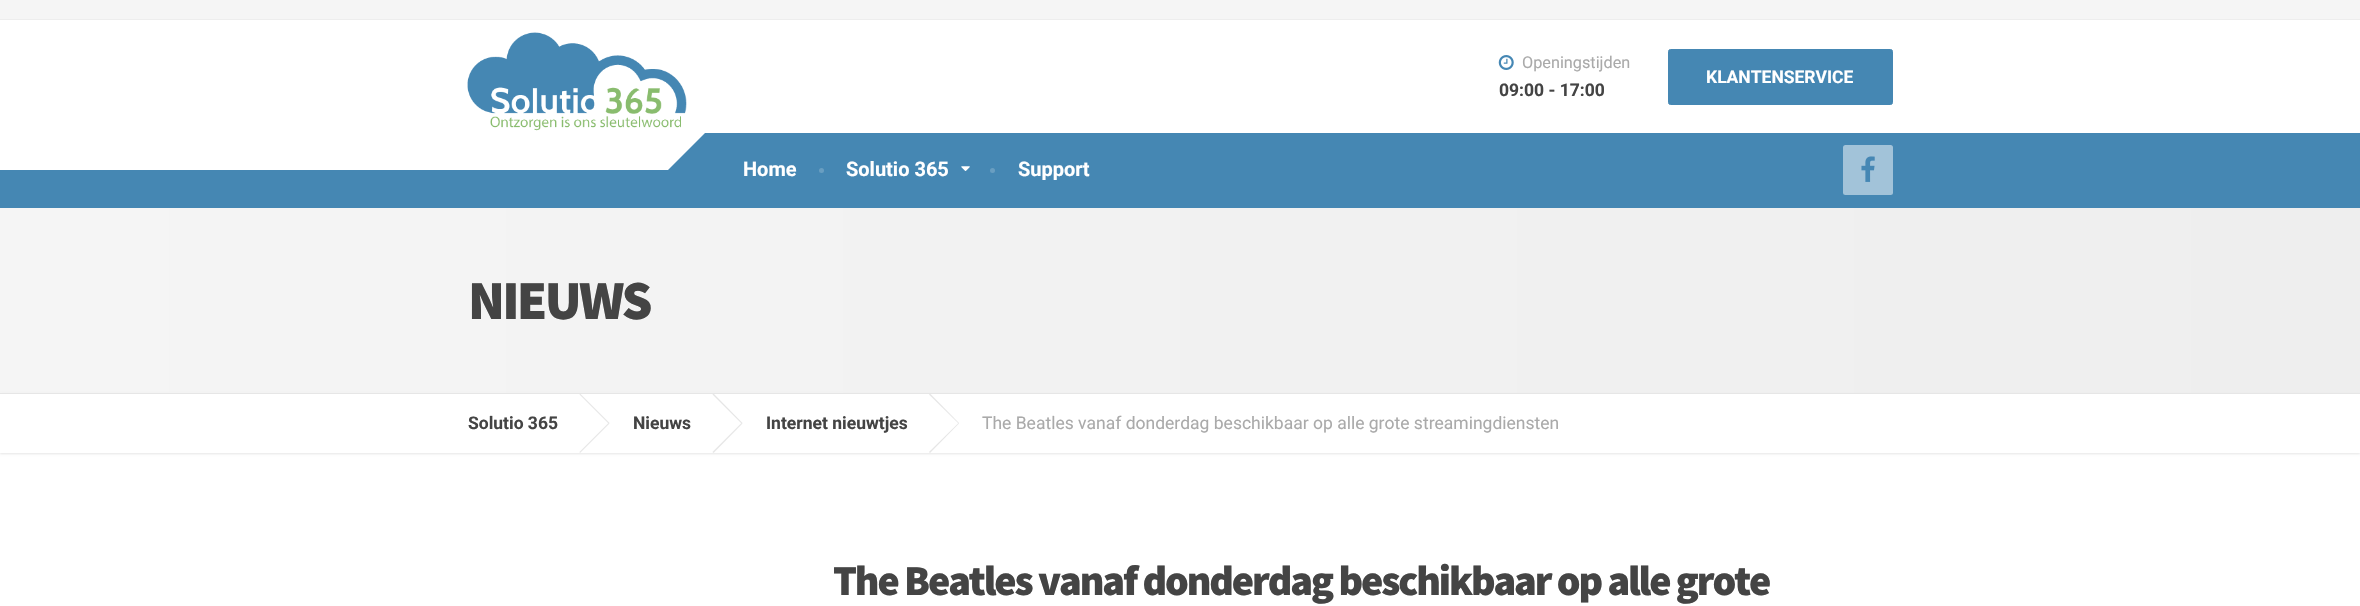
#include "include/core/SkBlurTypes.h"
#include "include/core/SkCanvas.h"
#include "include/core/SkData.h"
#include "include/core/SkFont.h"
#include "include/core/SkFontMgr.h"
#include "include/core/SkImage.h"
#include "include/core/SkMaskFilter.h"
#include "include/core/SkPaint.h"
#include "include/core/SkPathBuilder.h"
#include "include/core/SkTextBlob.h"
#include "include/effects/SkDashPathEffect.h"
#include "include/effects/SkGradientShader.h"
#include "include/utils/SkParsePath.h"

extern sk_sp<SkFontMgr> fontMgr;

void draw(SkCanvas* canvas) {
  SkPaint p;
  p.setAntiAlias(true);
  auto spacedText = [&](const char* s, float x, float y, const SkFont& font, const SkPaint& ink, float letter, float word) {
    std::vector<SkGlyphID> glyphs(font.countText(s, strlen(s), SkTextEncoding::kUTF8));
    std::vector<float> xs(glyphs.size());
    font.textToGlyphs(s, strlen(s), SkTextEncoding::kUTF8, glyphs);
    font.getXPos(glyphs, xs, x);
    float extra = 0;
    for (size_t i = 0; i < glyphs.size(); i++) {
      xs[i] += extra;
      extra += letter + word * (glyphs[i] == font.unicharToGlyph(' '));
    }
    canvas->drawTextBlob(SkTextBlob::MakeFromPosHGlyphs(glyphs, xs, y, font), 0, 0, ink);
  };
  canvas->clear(SK_ColorWHITE);
  p.setColor(SkColorSetRGB(245, 245, 245));
  canvas->drawRect(SkRect::MakeLTRB(0, 0, 2360, 19), p);
  p.setColor(SkColorSetRGB(237, 237, 237));
  canvas->drawRect(SkRect::MakeLTRB(0, 19, 2360, 20), p);
  p.setColor(SkColorSetRGB(69, 135, 179));
  canvas->drawRect(SkRect::MakeLTRB(0, 133, 2360, 208), p);
  p.setColor(SK_ColorWHITE);
  canvas->drawRect(SkRect::MakeLTRB(0, 133, 668, 170), p);
  canvas->drawPath(SkPathBuilder().moveTo(706, 132).lineTo(668, 170).lineTo(630, 132).lineTo(668, 94).close().detach(), p);
  canvas->drawImageRect(SkImages::DeferredFromEncodedData(SkData::MakeFromFileName("images/1.png")), SkRect::MakeLTRB(467, 32, 687, 131), SkSamplingOptions());
  canvas->drawImageRect(SkImages::DeferredFromEncodedData(SkData::MakeFromFileName("images/2.png")), SkRect::MakeLTRB(1498, 55, 1514, 70), SkSamplingOptions());
  p.setColor(SkColorSetRGB(69, 135, 179));
  canvas->drawRoundRect(SkRect::MakeLTRB(1668.5f, 49.5f, 1892.5f, 104.5f), 2, 2, p);
  p.setStyle(SkPaint::kStroke_Style);
  p.setStrokeWidth(1);
  canvas->drawRoundRect(SkRect::MakeLTRB(1668.5f, 49.5f, 1892.5f, 104.5f), 2, 2, p);
  p.setStyle(SkPaint::kFill_Style);
  p.setColor(SkColorSetRGB(105, 158, 193));
  canvas->drawCircle(821.5f, 170.5f, 2.5f, p);
  canvas->drawCircle(992.5f, 170.5f, 2.5f, p);
  canvas->drawImageRect(SkImages::DeferredFromEncodedData(SkData::MakeFromFileName("images/3.png")), SkRect::MakeLTRB(961, 166, 970, 171), SkSamplingOptions());
  p.setColor(SkColorSetRGB(162, 195, 217));
  canvas->drawRoundRect(SkRect::MakeLTRB(1843, 145, 1893, 195), 2.5f, 2.5f, p);
  canvas->drawImageRect(SkImages::DeferredFromEncodedData(SkData::MakeFromFileName("images/4.png")), SkRect::MakeLTRB(1861, 156, 1875, 182), SkSamplingOptions());
  {
    const SkColor colors[] = {SkColorSetRGB(245, 245, 245), SkColorSetRGB(238, 238, 238)};
    const float stops[] = {0, 1};
    const SkPoint ends[] = {{0, 300}, {2360, 300}};
    p.setShader(SkGradientShader::MakeLinear(ends, colors, stops, 2, SkTileMode::kClamp));
    p.setAlpha(255);
  }
  canvas->drawRect(SkRect::MakeLTRB(0, 208, 2360, 393), p);
  p.setShader(nullptr);
  p.setColor(SkColorSetRGB(230, 230, 230));
  p.setMaskFilter(SkMaskFilter::MakeBlur(kNormal_SkBlurStyle, 1));
  canvas->drawRect(SkRect::MakeLTRB(0, 394, 2360, 454), p);
  p.setMaskFilter(nullptr);
  p.setColor(SK_ColorWHITE);
  canvas->drawRect(SkRect::MakeLTRB(0, 394, 2360, 453), p);
  p.setColor(SkColorSetRGB(230, 230, 230));
  canvas->drawRect(SkRect::MakeLTRB(0, 393, 2360, 394), p);
  canvas->drawPath(SkPathBuilder().moveTo(579.5f, 394.5f).lineTo(580, 393.5f).lineTo(609.5f, 423).lineTo(608.5f, 423.5f).close().detach(), p);
  canvas->drawPath(SkPathBuilder().moveTo(608.5f, 423).lineTo(609.5f, 423.5f).lineTo(580, 453).lineTo(579.5f, 452).close().detach(), p);
  canvas->drawPath(SkPathBuilder().moveTo(712.5f, 394.5f).lineTo(713.5f, 393.5f).lineTo(742.5f, 423).lineTo(741.5f, 423.5f).close().detach(), p);
  canvas->drawPath(SkPathBuilder().moveTo(741.5f, 423).lineTo(742.5f, 423.5f).lineTo(713.5f, 453).lineTo(712.5f, 452).close().detach(), p);
  canvas->drawPath(SkPathBuilder().moveTo(929, 394.5f).lineTo(930, 393.5f).lineTo(959, 423).lineTo(958.5f, 423.5f).close().detach(), p);
  canvas->drawPath(SkPathBuilder().moveTo(958.5f, 423).lineTo(959, 423.5f).lineTo(930, 453).lineTo(929, 452).close().detach(), p);
  SkFont font1(fontMgr->matchFamilyStyle("Roboto", SkFontStyle::Normal()), 16.25f);
  font1.setSubpixel(true);
  p.setColor(SkColorSetRGB(170, 170, 170));
  canvas->drawString("Openingstijden", 1522, 68, font1, p);
  SkFont font2(fontMgr->matchFamilyStyle("Roboto", SkFontStyle::Bold()), 17.5f);
  font2.setSubpixel(true);
  p.setColor(SkColorSetRGB(68, 68, 68));
  canvas->drawString("09:00 - 17:00", 1499, 96, font2, p);
  p.setColor(SK_ColorWHITE);
  canvas->drawString("KLANTENSERVICE", 1706, 83, font2, p);
  SkFont font3(fontMgr->matchFamilyStyle("Roboto", SkFontStyle::Bold()), 20);
  font3.setSubpixel(true);
  canvas->drawString("Home", 743, 176, font3, p);
  canvas->drawString("Solutio 365", 846, 176, font3, p);
  canvas->drawString("Support", 1018, 176, font3, p);
  SkFont font4(fontMgr->matchFamilyStyle("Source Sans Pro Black", SkFontStyle(900, SkFontStyle::kNormal_Width, SkFontStyle::kUpright_Slant)), 55);
  font4.setSubpixel(true);
  p.setColor(SkColorSetRGB(68, 68, 68));
  spacedText("NIEUWS", 468, 319, font4, p, -2.75f, 0);
  canvas->drawString("Solutio 365", 468, 429, font2, p);
  canvas->drawString("Nieuws", 633, 429, font2, p);
  canvas->drawString("Internet nieuwtjes", 766, 429, font2, p);
  SkFont font5(fontMgr->matchFamilyStyle("Roboto", SkFontStyle::Normal()), 17.5f);
  font5.setSubpixel(true);
  p.setColor(SkColorSetRGB(170, 170, 170));
  canvas->drawString("The Beatles vanaf donderdag beschikbaar op alle grote streamingdiensten", 982, 429, font5, p);
  SkFont font6(fontMgr->matchFamilyStyle("Source Sans Pro Black", SkFontStyle(900, SkFontStyle::kNormal_Width, SkFontStyle::kUpright_Slant)), 42.5f);
  font6.setSubpixel(true);
  p.setColor(SkColorSetRGB(68, 68, 68));
  spacedText("The Beatles vanaf donderdag beschikbaar op alle grote", 833, 595, font6, p, -2.12f, 0);
}
